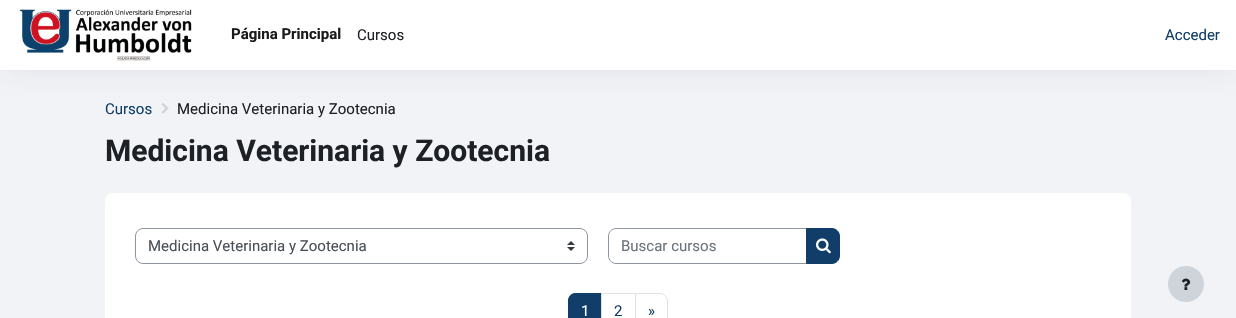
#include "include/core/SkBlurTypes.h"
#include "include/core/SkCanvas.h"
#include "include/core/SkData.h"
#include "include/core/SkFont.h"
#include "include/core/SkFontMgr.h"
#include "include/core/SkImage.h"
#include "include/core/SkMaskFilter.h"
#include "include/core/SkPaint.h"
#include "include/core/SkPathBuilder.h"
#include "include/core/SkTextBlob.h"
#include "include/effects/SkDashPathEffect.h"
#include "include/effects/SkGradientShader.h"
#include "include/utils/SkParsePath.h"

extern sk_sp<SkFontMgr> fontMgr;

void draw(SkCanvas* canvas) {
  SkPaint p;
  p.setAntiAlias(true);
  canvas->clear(SkColorSetRGB(242, 243, 247));
  canvas->drawImageRect(SkImages::DeferredFromEncodedData(SkData::MakeFromFileName("images/2.png")), SkRect::MakeLTRB(161, 103, 169, 114), SkSamplingOptions());
  p.setColor(SkColorSetARGB(33, 140, 152, 164));
  p.setMaskFilter(SkMaskFilter::MakeBlur(kNormal_SkBlurStyle, 12));
  canvas->drawRect(SkRect::MakeLTRB(0, 6, 1236, 76), p);
  p.setMaskFilter(nullptr);
  p.setColor(SK_ColorWHITE);
  canvas->drawRect(SkRect::MakeLTRB(0, 0, 1236, 70), p);
  canvas->drawImageRect(SkImages::DeferredFromEncodedData(SkData::MakeFromFileName("images/1.png")), SkRect::MakeLTRB(19, 9, 192, 61), SkSamplingOptions());
  canvas->drawPath(SkPathBuilder().moveTo(113, 193).lineTo(1123, 193).cubicTo(1127.5f, 193, 1131, 196.5f, 1131, 201).lineTo(1131, 318).lineTo(105, 318).lineTo(105, 201).cubicTo(105, 196.5f, 108.5f, 193, 113, 193).close().detach(), p);
  canvas->drawImageRect(SkImages::DeferredFromEncodedData(SkData::MakeFromFileName("images/3.png")), SkRect::MakeLTRB(567, 241, 575, 251), SkSamplingOptions());
  p.setStyle(SkPaint::kStroke_Style);
  p.setStrokeWidth(1);
  p.setColor(SkColorSetRGB(143, 149, 158));
  canvas->drawRoundRect(SkRect::MakeLTRB(135.5f, 228.5f, 587.5f, 263.5f), 7.5f, 7.5f, p);
  canvas->drawPath(SkPathBuilder().moveTo(616, 228.5f).lineTo(806.5f, 228.5f).lineTo(806.5f, 263.5f).lineTo(616, 263.5f).cubicTo(612, 263.5f, 608.5f, 260, 608.5f, 256).lineTo(608.5f, 236).cubicTo(608.5f, 232, 612, 228.5f, 616, 228.5f).close().detach(), p);
  p.setStyle(SkPaint::kFill_Style);
  p.setColor(SkColorSetRGB(16, 62, 105));
  canvas->drawPath(SkPathBuilder().moveTo(806.5f, 228.5f).lineTo(832, 228.5f).cubicTo(836, 228.5f, 839.5f, 232, 839.5f, 236).lineTo(839.5f, 256).cubicTo(839.5f, 260, 836, 263.5f, 832, 263.5f).lineTo(806.5f, 263.5f).close().detach(), p);
  p.setStyle(SkPaint::kStroke_Style);
  canvas->drawPath(SkPathBuilder().moveTo(806.5f, 228.5f).lineTo(832, 228.5f).cubicTo(836, 228.5f, 839.5f, 232, 839.5f, 236).lineTo(839.5f, 256).cubicTo(839.5f, 260, 836, 263.5f, 832, 263.5f).lineTo(806.5f, 263.5f).close().detach(), p);
  canvas->drawImageRect(SkImages::DeferredFromEncodedData(SkData::MakeFromFileName("images/4.png")), SkRect::MakeLTRB(816, 238, 831, 254), SkSamplingOptions());
  p.setStyle(SkPaint::kFill_Style);
  canvas->drawPath(SkPathBuilder().moveTo(576, 293).lineTo(602, 293).lineTo(602, 318).lineTo(568, 318).lineTo(568, 301).cubicTo(568, 296.5f, 571.5f, 293, 576, 293).close().detach(), p);
  p.setStyle(SkPaint::kStroke_Style);
  canvas->drawPath(SkPathBuilder().moveTo(576, 293.5f).lineTo(601.5f, 293.5f).lineTo(601.5f, 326.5f).lineTo(576, 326.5f).cubicTo(572, 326.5f, 568.5f, 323, 568.5f, 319).lineTo(568.5f, 301).cubicTo(568.5f, 297, 572, 293.5f, 576, 293.5f).close().detach(), p);
  p.setColor(SkColorSetRGB(222, 226, 230));
  canvas->drawRect(SkRect::MakeLTRB(601.5f, 293.5f, 635.5f, 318.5f), p);
  p.setStyle(SkPaint::kFill_Style);
  p.setColor(SK_ColorWHITE);
  canvas->drawPath(SkPathBuilder().moveTo(635, 293).lineTo(660, 293).cubicTo(664.5f, 293, 668, 296.5f, 668, 301).lineTo(668, 318).lineTo(635, 318).close().detach(), p);
  p.setStyle(SkPaint::kStroke_Style);
  p.setColor(SkColorSetRGB(222, 226, 230));
  canvas->drawPath(SkPathBuilder().moveTo(635.5f, 293.5f).lineTo(660, 293.5f).cubicTo(664, 293.5f, 667.5f, 297, 667.5f, 301).lineTo(667.5f, 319).cubicTo(667.5f, 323, 664, 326.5f, 660, 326.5f).lineTo(635.5f, 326.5f).close().detach(), p);
  p.setStyle(SkPaint::kFill_Style);
  p.setColor(SkColorSetRGB(206, 212, 218));
  canvas->drawCircle(1186, 284, 18, p);
  canvas->drawImageRect(SkImages::DeferredFromEncodedData(SkData::MakeFromFileName("images/5.png")), SkRect::MakeLTRB(1181, 278, 1191, 290), SkSamplingOptions());
  SkFont font1(fontMgr->matchFamilyStyle("Roboto", SkFontStyle::Bold()), 15);
  font1.setSubpixel(true);
  p.setColor(SkColorSetRGB(26, 26, 26));
  canvas->drawString("Página Principal", 231, 39, font1, p);
  SkFont font2(fontMgr->matchFamilyStyle("Roboto", SkFontStyle::Normal()), 15);
  font2.setSubpixel(true);
  p.setColor(SkColorSetRGB(29, 33, 37));
  canvas->drawString("Cursos", 357, 40, font2, p);
  p.setColor(SkColorSetRGB(16, 62, 105));
  canvas->drawString("Acceder", 1165, 40, font2, p);
  canvas->drawString("Cursos", 105, 114, font2, p);
  p.setColor(SkColorSetRGB(29, 33, 37));
  canvas->drawString("Medicina Veterinaria y Zootecnia", 177, 114, font2, p);
  SkFont font3(fontMgr->matchFamilyStyle("Roboto", SkFontStyle::Bold()), 30);
  font3.setSubpixel(true);
  canvas->drawString("Medicina Veterinaria y Zootecnia", 105, 161, font3, p);
  p.setColor(SkColorSetRGB(73, 80, 87));
  canvas->drawString("Medicina Veterinaria y Zootecnia", 148, 251, font2, p);
  p.setColor(SkColorSetRGB(106, 115, 123));
  canvas->drawString("Buscar cursos", 621, 251, font2, p);
  p.setColor(SK_ColorWHITE);
  canvas->drawString("1", 581, 316, font2, p);
  p.setColor(SkColorSetRGB(16, 62, 105));
  canvas->drawString("2", 614, 316, font2, p);
  canvas->drawString("»", 648, 316, font2, p);
}
